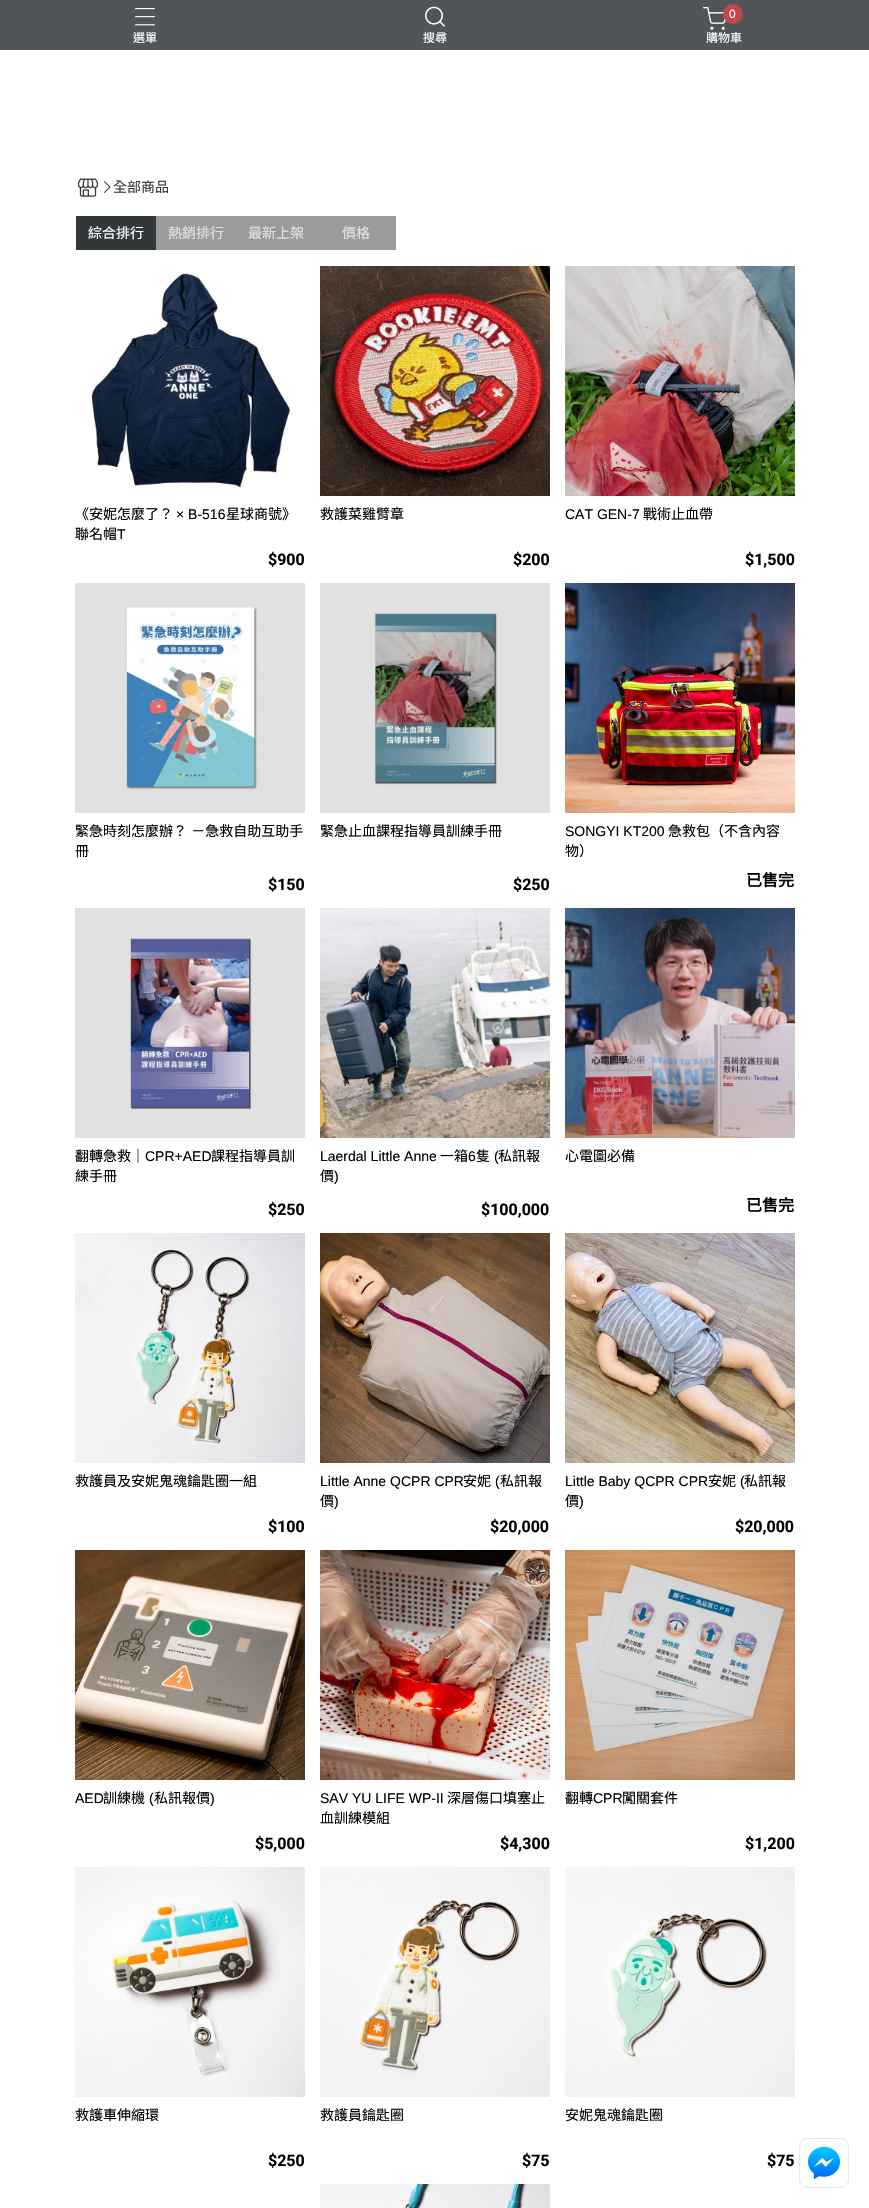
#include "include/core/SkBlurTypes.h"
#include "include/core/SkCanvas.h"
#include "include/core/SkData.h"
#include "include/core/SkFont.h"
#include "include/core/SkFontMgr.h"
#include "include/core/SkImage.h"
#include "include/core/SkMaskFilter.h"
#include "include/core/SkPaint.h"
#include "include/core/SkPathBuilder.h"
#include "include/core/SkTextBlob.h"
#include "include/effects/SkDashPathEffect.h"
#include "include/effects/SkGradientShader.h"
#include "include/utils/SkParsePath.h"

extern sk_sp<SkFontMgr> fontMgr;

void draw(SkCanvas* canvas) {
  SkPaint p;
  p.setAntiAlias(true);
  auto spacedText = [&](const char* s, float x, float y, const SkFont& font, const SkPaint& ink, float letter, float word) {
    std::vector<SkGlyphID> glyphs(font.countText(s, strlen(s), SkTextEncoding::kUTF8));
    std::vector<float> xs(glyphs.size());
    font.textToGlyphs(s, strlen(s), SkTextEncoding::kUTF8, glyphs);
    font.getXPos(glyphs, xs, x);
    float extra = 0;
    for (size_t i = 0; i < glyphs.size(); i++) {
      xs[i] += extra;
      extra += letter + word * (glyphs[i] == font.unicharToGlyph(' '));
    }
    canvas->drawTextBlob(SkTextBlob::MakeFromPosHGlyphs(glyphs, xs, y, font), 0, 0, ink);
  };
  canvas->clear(SK_ColorWHITE);
  p.setColor(SkColorSetRGB(81, 85, 88));
  canvas->drawRect(SkRect::MakeLTRB(0, 0, 869, 50), p);
  canvas->drawImageRect(SkImages::DeferredFromEncodedData(SkData::MakeFromFileName("images/1.png")), SkRect::MakeLTRB(135, 8, 155, 26), SkSamplingOptions());
  canvas->drawImageRect(SkImages::DeferredFromEncodedData(SkData::MakeFromFileName("images/2.png")), SkRect::MakeLTRB(425, 6, 445, 27), SkSamplingOptions());
  canvas->drawImageRect(SkImages::DeferredFromEncodedData(SkData::MakeFromFileName("images/3.png")), SkRect::MakeLTRB(703, 7, 726, 30), SkSamplingOptions());
  p.setColor(SkColorSetRGB(193, 72, 72));
  canvas->drawCircle(733, 14, 10, p);
  canvas->drawImageRect(SkImages::DeferredFromEncodedData(SkData::MakeFromFileName("images/4.png")), SkRect::MakeLTRB(78, 178, 98, 197), SkSamplingOptions());
  canvas->drawImageRect(SkImages::DeferredFromEncodedData(SkData::MakeFromFileName("images/5.png")), SkRect::MakeLTRB(104, 181, 111, 193), SkSamplingOptions());
  p.setColor(SkColorSetRGB(50, 55, 58));
  canvas->drawRect(SkRect::MakeLTRB(76, 216, 156, 250), p);
  p.setColor(SkColorSetRGB(153, 155, 157));
  canvas->drawRect(SkRect::MakeLTRB(156, 216, 396, 250), p);
  canvas->drawImageRect(SkImages::DeferredFromEncodedData(SkData::MakeFromFileName("images/6.png")), SkRect::MakeLTRB(90, 272, 290, 488), SkSamplingOptions());
  canvas->drawImageRect(SkImages::DeferredFromEncodedData(SkData::MakeFromFileName("images/7.png")), SkRect::MakeLTRB(320, 266, 550, 496), SkSamplingOptions());
  canvas->drawImageRect(SkImages::DeferredFromEncodedData(SkData::MakeFromFileName("images/8.png")), SkRect::MakeLTRB(565, 266, 795, 496), SkSamplingOptions());
  canvas->drawImageRect(SkImages::DeferredFromEncodedData(SkData::MakeFromFileName("images/9.png")), SkRect::MakeLTRB(75, 583, 305, 813), SkSamplingOptions());
  canvas->drawImageRect(SkImages::DeferredFromEncodedData(SkData::MakeFromFileName("images/10.png")), SkRect::MakeLTRB(320, 583, 550, 813), SkSamplingOptions());
  canvas->drawImageRect(SkImages::DeferredFromEncodedData(SkData::MakeFromFileName("images/11.png")), SkRect::MakeLTRB(565, 583, 795, 813), SkSamplingOptions());
  canvas->drawImageRect(SkImages::DeferredFromEncodedData(SkData::MakeFromFileName("images/12.png")), SkRect::MakeLTRB(75, 908, 305, 1138), SkSamplingOptions());
  canvas->drawImageRect(SkImages::DeferredFromEncodedData(SkData::MakeFromFileName("images/13.png")), SkRect::MakeLTRB(320, 908, 550, 1138), SkSamplingOptions());
  canvas->drawImageRect(SkImages::DeferredFromEncodedData(SkData::MakeFromFileName("images/14.png")), SkRect::MakeLTRB(565, 908, 795, 1138), SkSamplingOptions());
  canvas->drawImageRect(SkImages::DeferredFromEncodedData(SkData::MakeFromFileName("images/15.png")), SkRect::MakeLTRB(75, 1233, 305, 1463), SkSamplingOptions());
  canvas->drawImageRect(SkImages::DeferredFromEncodedData(SkData::MakeFromFileName("images/16.png")), SkRect::MakeLTRB(320, 1233, 550, 1463), SkSamplingOptions());
  canvas->drawImageRect(SkImages::DeferredFromEncodedData(SkData::MakeFromFileName("images/17.png")), SkRect::MakeLTRB(565, 1233, 795, 1463), SkSamplingOptions());
  canvas->drawImageRect(SkImages::DeferredFromEncodedData(SkData::MakeFromFileName("images/18.png")), SkRect::MakeLTRB(75, 1550, 305, 1780), SkSamplingOptions());
  canvas->drawImageRect(SkImages::DeferredFromEncodedData(SkData::MakeFromFileName("images/19.png")), SkRect::MakeLTRB(320, 1550, 550, 1780), SkSamplingOptions());
  canvas->drawImageRect(SkImages::DeferredFromEncodedData(SkData::MakeFromFileName("images/20.png")), SkRect::MakeLTRB(565, 1550, 795, 1780), SkSamplingOptions());
  canvas->drawImageRect(SkImages::DeferredFromEncodedData(SkData::MakeFromFileName("images/21.png")), SkRect::MakeLTRB(75, 1867, 305, 2097), SkSamplingOptions());
  canvas->drawImageRect(SkImages::DeferredFromEncodedData(SkData::MakeFromFileName("images/22.png")), SkRect::MakeLTRB(320, 1867, 550, 2097), SkSamplingOptions());
  canvas->drawImageRect(SkImages::DeferredFromEncodedData(SkData::MakeFromFileName("images/23.png")), SkRect::MakeLTRB(565, 1867, 795, 2097), SkSamplingOptions());
  canvas->drawImageRect(SkImages::DeferredFromEncodedData(SkData::MakeFromFileName("images/24.png")), SkRect::MakeLTRB(320, 2184, 550, 2208), SkSamplingOptions());
  p.setStyle(SkPaint::kStroke_Style);
  p.setStrokeWidth(1);
  p.setColor(SkColorSetRGB(230, 230, 230));
  canvas->drawRoundRect(SkRect::MakeLTRB(799.5f, 2138.5f, 848.5f, 2187.5f), 7.5f, 7.5f, p);
  canvas->drawImageRect(SkImages::DeferredFromEncodedData(SkData::MakeFromFileName("images/25.png")), SkRect::MakeLTRB(807, 2146, 841, 2179), SkSamplingOptions());
  SkFont font1(fontMgr->matchFamilyStyle("Noto Sans CJK TC", SkFontStyle::Normal()), 12);
  font1.setSubpixel(true);
  p.setStyle(SkPaint::kFill_Style);
  p.setColor(SK_ColorWHITE);
  canvas->drawString("選單", 133, 42, font1, p);
  canvas->drawString("搜尋", 423, 42, font1, p);
  SkFont font2(fontMgr->matchFamilyStyle("Liberation Sans", SkFontStyle::Normal()), 12);
  font2.setSubpixel(true);
  spacedText("0", 729, 18, font2, p, 1, 0);
  canvas->drawString("購物車", 706, 42, font1, p);
  SkFont font3(fontMgr->matchFamilyStyle("Noto Sans CJK TC", SkFontStyle::Normal()), 14);
  font3.setSubpixel(true);
  p.setColor(SkColorSetRGB(50, 55, 58));
  canvas->drawString("全部商品", 113, 192, font3, p);
  p.setColor(SK_ColorWHITE);
  canvas->drawString("綜合排行", 88, 238, font3, p);
  p.setColor(SkColorSetRGB(224, 225, 226));
  canvas->drawString("熱銷排行", 168, 238, font3, p);
  canvas->drawString("最新上架", 248, 238, font3, p);
  canvas->drawString("價格", 342, 238, font3, p);
  p.setColor(SK_ColorBLACK);
  canvas->drawString("《安妮怎麼了？", 75, 519, font3, p);
  SkFont font4(fontMgr->matchFamilyStyle("Liberation Sans", SkFontStyle::Normal()), 14);
  font4.setSubpixel(true);
  canvas->drawString("× B-516", 176, 519, font4, p);
  canvas->drawString("星球商號》", 226, 519, font3, p);
  canvas->drawString("聯名帽", 75, 539, font3, p);
  canvas->drawString("T", 117, 539, font4, p);
  SkFont font5(fontMgr->matchFamilyStyle("Roboto", SkFontStyle::Bold()), 16);
  font5.setSubpixel(true);
  canvas->drawString("$900", 268, 565, font5, p);
  canvas->drawString("救護菜雞臂章", 320, 519, font3, p);
  canvas->drawString("$200", 513, 565, font5, p);
  canvas->drawString("CAT GEN-7", 565, 519, font4, p);
  canvas->drawString("戰術止血帶", 643, 519, font3, p);
  canvas->drawString("$1,500", 745, 565, font5, p);
  spacedText("緊急時刻怎麼辦？ －急救自助互助手", 75, 836, font3, p, 0, 1);
  canvas->drawString("冊", 75, 856, font3, p);
  canvas->drawString("$150", 268, 890, font5, p);
  canvas->drawString("緊急止血課程指導員訓練手冊", 320, 836, font3, p);
  canvas->drawString("$250", 513, 890, font5, p);
  canvas->drawString("SONGYI KT200", 565, 836, font4, p);
  canvas->drawString("急救包（不含內容", 668, 836, font3, p);
  canvas->drawString("物）", 565, 856, font3, p);
  SkFont font6(fontMgr->matchFamilyStyle("Noto Sans CJK TC", SkFontStyle::Bold()), 16);
  font6.setSubpixel(true);
  canvas->drawString("已售完", 746, 886, font6, p);
  canvas->drawString("翻轉急救｜", 75, 1161, font3, p);
  canvas->drawString("CPR+AED", 145, 1161, font4, p);
  canvas->drawString("課程指導員訓", 211, 1161, font3, p);
  canvas->drawString("練手冊", 75, 1181, font3, p);
  canvas->drawString("$250", 268, 1215, font5, p);
  canvas->drawString("Laerdal Little Anne", 320, 1161, font4, p);
  canvas->drawString("一箱", 440, 1161, font3, p);
  canvas->drawString("6", 468, 1161, font4, p);
  canvas->drawString("隻", 476, 1161, font3, p);
  canvas->drawString("(", 494, 1161, font4, p);
  canvas->drawString("私訊報", 498, 1161, font3, p);
  canvas->drawString("價", 320, 1181, font3, p);
  canvas->drawString(")", 334, 1181, font4, p);
  canvas->drawString("$100,000", 481, 1215, font5, p);
  canvas->drawString("心電圖必備", 565, 1161, font3, p);
  canvas->drawString("已售完", 746, 1211, font6, p);
  canvas->drawString("救護員及安妮鬼魂鑰匙圈一組", 75, 1486, font3, p);
  canvas->drawString("$100", 268, 1532, font5, p);
  canvas->drawString("Little Anne QCPR CPR", 320, 1486, font4, p);
  canvas->drawString("安妮", 463, 1486, font3, p);
  canvas->drawString("(", 495, 1486, font4, p);
  canvas->drawString("私訊報", 500, 1486, font3, p);
  canvas->drawString("價", 320, 1506, font3, p);
  canvas->drawString(")", 334, 1506, font4, p);
  canvas->drawString("$20,000", 490, 1532, font5, p);
  canvas->drawString("Little Baby QCPR CPR", 565, 1486, font4, p);
  canvas->drawString("安妮", 708, 1486, font3, p);
  canvas->drawString("(", 740, 1486, font4, p);
  canvas->drawString("私訊報", 744, 1486, font3, p);
  canvas->drawString("價", 565, 1506, font3, p);
  canvas->drawString(")", 579, 1506, font4, p);
  canvas->drawString("$20,000", 735, 1532, font5, p);
  canvas->drawString("AED", 75, 1803, font4, p);
  canvas->drawString("訓練機", 103, 1803, font3, p);
  canvas->drawString("(", 149, 1803, font4, p);
  canvas->drawString("私訊報價", 154, 1803, font3, p);
  canvas->drawString(")", 210, 1803, font4, p);
  canvas->drawString("$5,000", 255, 1849, font5, p);
  canvas->drawString("SAV YU LIFE WP-II", 320, 1803, font4, p);
  canvas->drawString("深層傷口填塞止", 447, 1803, font3, p);
  canvas->drawString("血訓練模組", 320, 1823, font3, p);
  canvas->drawString("$4,300", 500, 1849, font5, p);
  canvas->drawString("翻轉", 565, 1803, font3, p);
  canvas->drawString("CPR", 593, 1803, font4, p);
  canvas->drawString("闖關套件", 622, 1803, font3, p);
  canvas->drawString("$1,200", 745, 1849, font5, p);
  canvas->drawString("救護車伸縮環", 75, 2120, font3, p);
  canvas->drawString("$250", 268, 2166, font5, p);
  canvas->drawString("救護員鑰匙圈", 320, 2120, font3, p);
  canvas->drawString("$75", 522, 2166, font5, p);
  canvas->drawString("安妮鬼魂鑰匙圈", 565, 2120, font3, p);
  canvas->drawString("$75", 767, 2166, font5, p);
}
